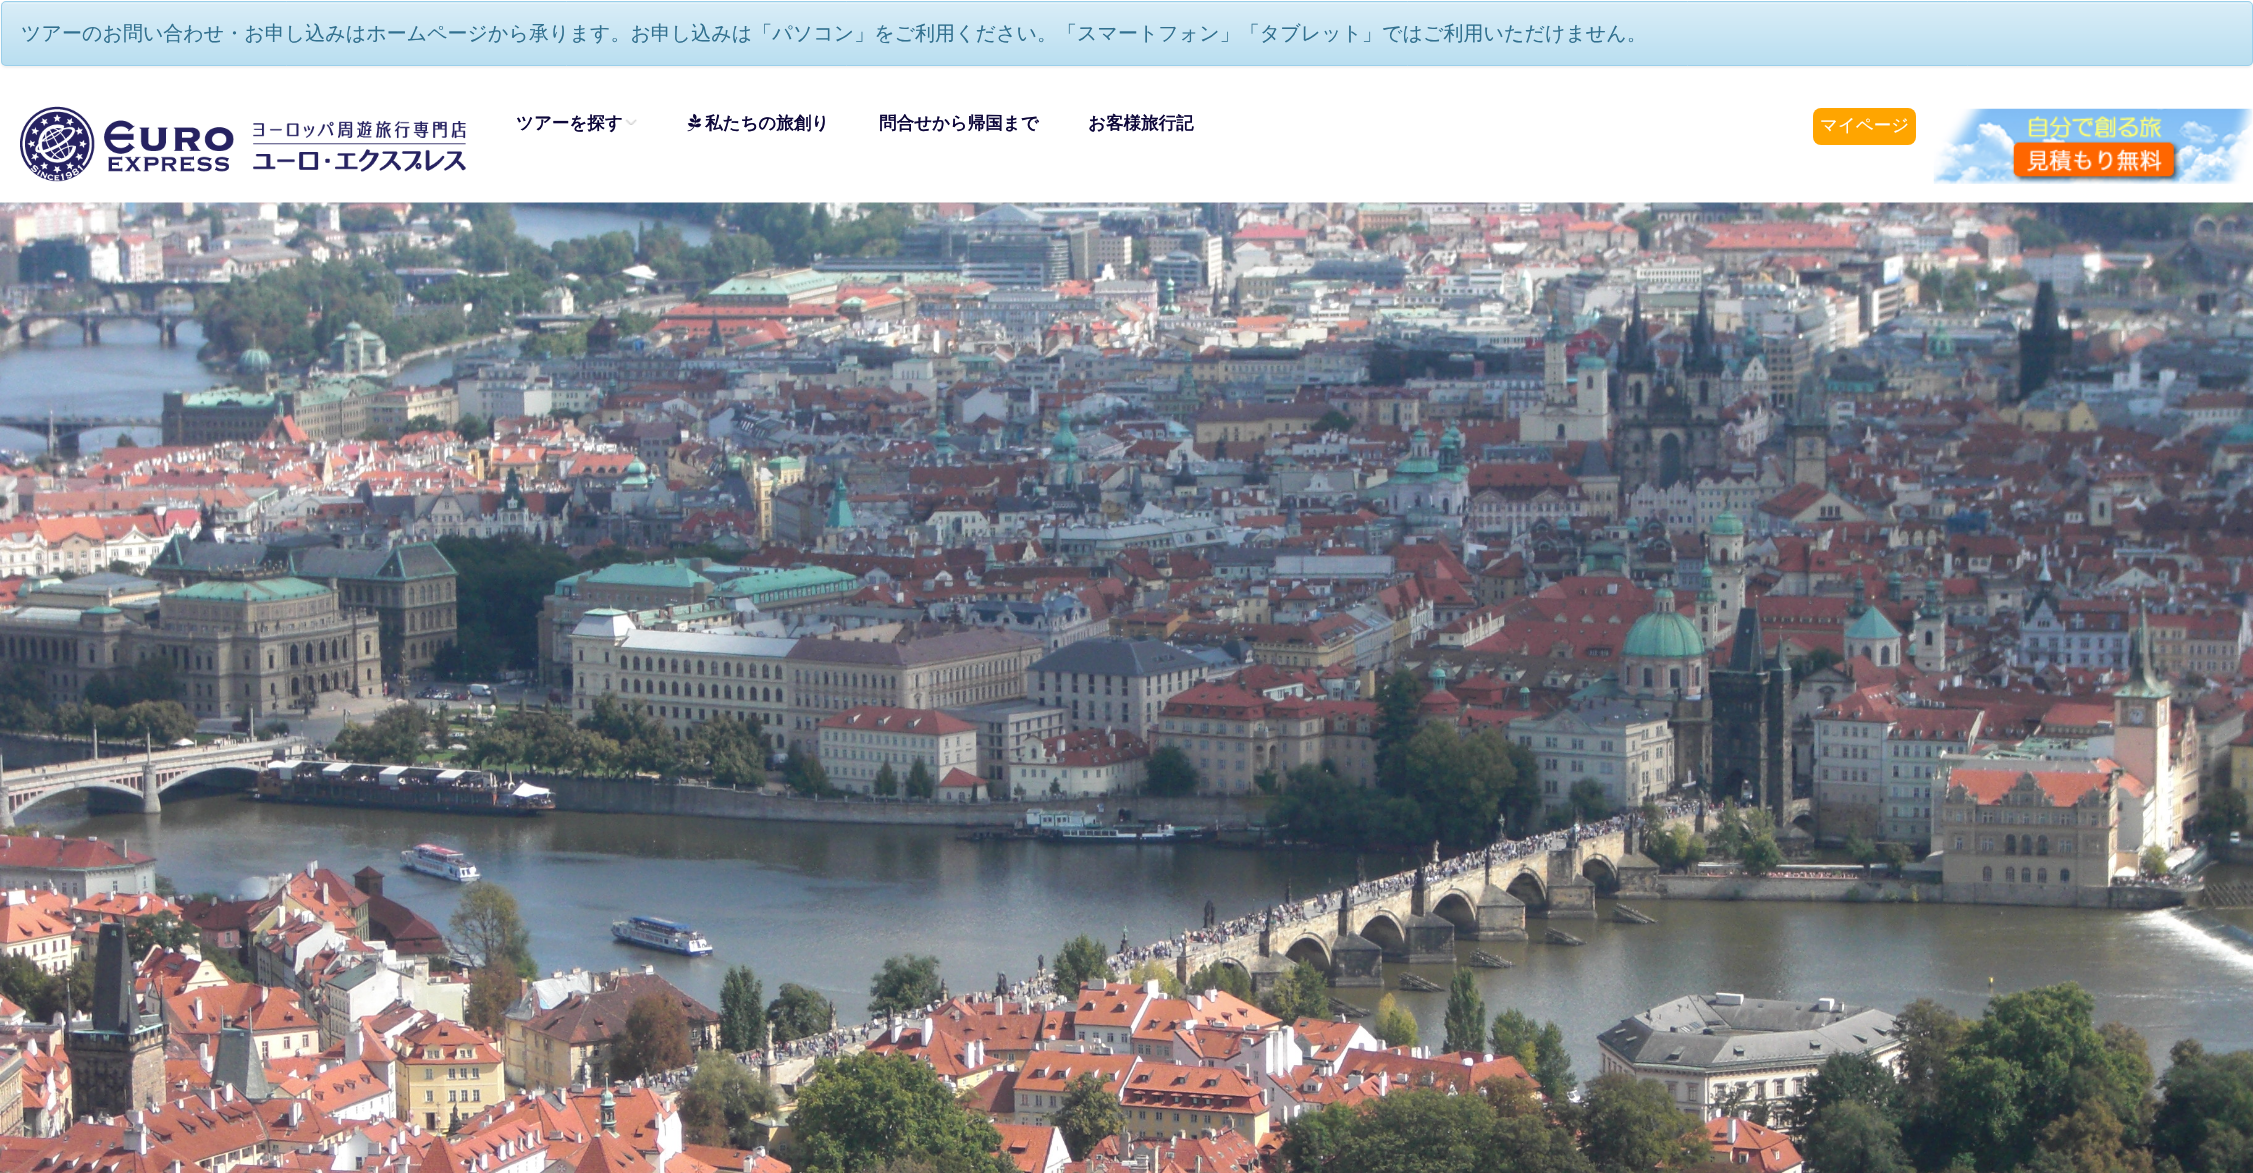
#include "include/core/SkBlurTypes.h"
#include "include/core/SkCanvas.h"
#include "include/core/SkData.h"
#include "include/core/SkFont.h"
#include "include/core/SkFontMgr.h"
#include "include/core/SkImage.h"
#include "include/core/SkMaskFilter.h"
#include "include/core/SkPaint.h"
#include "include/core/SkPathBuilder.h"
#include "include/core/SkTextBlob.h"
#include "include/effects/SkDashPathEffect.h"
#include "include/effects/SkGradientShader.h"
#include "include/utils/SkParsePath.h"

extern sk_sp<SkFontMgr> fontMgr;

void draw(SkCanvas* canvas) {
  SkPaint p;
  p.setAntiAlias(true);
  canvas->clear(SK_ColorWHITE);
  p.setColor(SkColorSetARGB(13, 0, 0, 0));
  p.setMaskFilter(SkMaskFilter::MakeBlur(kNormal_SkBlurStyle, 1));
  canvas->drawRoundRect(SkRect::MakeLTRB(1, 3, 2253, 68), 5, 5, p);
  p.setMaskFilter(nullptr);
  p.setColor(SkColorSetRGB(217, 237, 247));
  canvas->drawRoundRect(SkRect::MakeLTRB(1, 1, 2253, 66), 5, 5, p);
  canvas->save();
  canvas->clipPath(SkPathBuilder().moveTo(6, 1).lineTo(2248, 1).cubicTo(2251, 1, 2253, 3, 2253, 6).lineTo(2253, 61).cubicTo(2253, 64, 2251, 66, 2248, 66).lineTo(6, 66).cubicTo(3, 66, 1, 64, 1, 61).lineTo(1, 6).cubicTo(1, 3, 3, 1, 6, 1).close().detach(), true);
  {
    const SkColor colors[] = {SkColorSetRGB(217, 237, 247), SkColorSetRGB(185, 222, 240)};
    const float stops[] = {0, 1};
    const SkPoint ends[] = {{1127, 2.5f}, {1127, 65}};
    p.setShader(SkGradientShader::MakeLinear(ends, colors, stops, 2, SkTileMode::kClamp));
    p.setAlpha(255);
  }
  canvas->drawRect(SkRect::MakeLTRB(1, 3, 2253, 65), p);
  canvas->restore();
  p.setShader(nullptr);
  p.setColor(SkColorSetRGB(226, 242, 249));
  canvas->drawPath(SkPathBuilder().moveTo(6, 4).lineTo(2248, 4).cubicTo(2250, 4, 2251, 5, 2251, 8).lineTo(2251, 7).cubicTo(2251, 5, 2249, 3, 2247, 3).lineTo(7, 3).cubicTo(6, 3, 5, 4, 4, 4).close().detach(), p);
  p.setStyle(SkPaint::kStroke_Style);
  p.setStrokeWidth(1);
  p.setColor(SkColorSetRGB(154, 207, 234));
  canvas->drawRoundRect(SkRect::MakeLTRB(1.5f, 1.5f, 2252.5f, 65.5f), 4.5f, 4.5f, p);
  canvas->drawImageRect(SkImages::DeferredFromEncodedData(SkData::MakeFromFileName("images/1.png")), SkRect::MakeLTRB(20, 106, 466, 182), SkSamplingOptions());
  canvas->drawImageRect(SkImages::DeferredFromEncodedData(SkData::MakeFromFileName("images/2.png")), SkRect::MakeLTRB(625, 119, 637, 125), SkSamplingOptions());
  canvas->drawImageRect(SkImages::DeferredFromEncodedData(SkData::MakeFromFileName("images/3.png")), SkRect::MakeLTRB(687, 113, 702, 132), SkSamplingOptions());
  p.setStyle(SkPaint::kFill_Style);
  p.setColor(SkColorSetRGB(255, 165, 0));
  canvas->drawRoundRect(SkRect::MakeLTRB(1813, 108, 1916, 145), 8, 8, p);
  canvas->drawImageRect(SkImages::DeferredFromEncodedData(SkData::MakeFromFileName("images/4.png")), SkRect::MakeLTRB(1933, 108, 2253, 184), SkSamplingOptions());
  canvas->drawImageRect(SkImages::DeferredFromEncodedData(SkData::MakeFromFileName("images/5.png")), SkRect::MakeLTRB(0, 202, 2253, 1173), SkSamplingOptions());
  SkFont font1(fontMgr->matchFamilyStyle("WenQuanYi Zen Hei", SkFontStyle(500, SkFontStyle::kNormal_Width, SkFontStyle::kUpright_Slant)), 20);
  font1.setSubpixel(true);
  p.setColor(SkColorSetRGB(49, 112, 143));
  canvas->drawString("ツアーのお問い合わせ・お申し込みはホームページから承ります。お申し込みは「パソコン」をご利用ください。「スマートフォン」「タブレット」ではご利用いただけません。", 21, 40, font1, p);
  SkFont font2(fontMgr->matchFamilyStyle("WenQuanYi Zen Hei", SkFontStyle::Bold()), 17.5f);
  font2.setSubpixel(true);
  p.setColor(SkColorSetRGB(13, 7, 58));
  canvas->drawString("ツアーを探す", 516, 129, font2, p);
  canvas->drawString("私たちの旅創り", 705, 129, font2, p);
  canvas->drawString("問合せから帰国まで", 879, 129, font2, p);
  canvas->drawString("お客様旅行記", 1088, 129, font2, p);
  SkFont font3(fontMgr->matchFamilyStyle("WenQuanYi Zen Hei", SkFontStyle(500, SkFontStyle::kNormal_Width, SkFontStyle::kUpright_Slant)), 17.5f);
  font3.setSubpixel(true);
  p.setColor(SK_ColorWHITE);
  canvas->drawString("マイページ", 1820, 131, font3, p);
}
